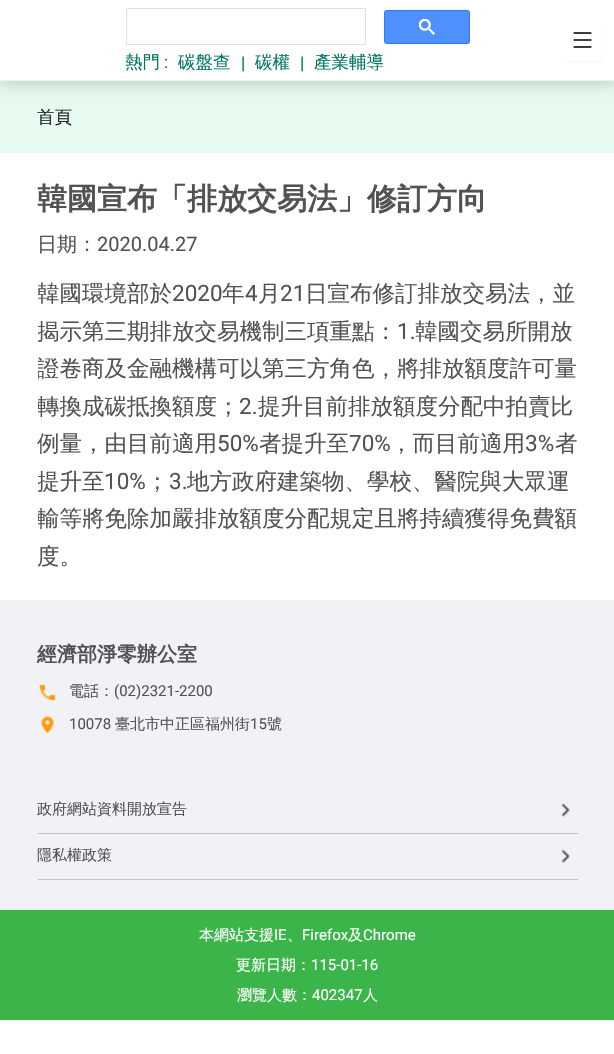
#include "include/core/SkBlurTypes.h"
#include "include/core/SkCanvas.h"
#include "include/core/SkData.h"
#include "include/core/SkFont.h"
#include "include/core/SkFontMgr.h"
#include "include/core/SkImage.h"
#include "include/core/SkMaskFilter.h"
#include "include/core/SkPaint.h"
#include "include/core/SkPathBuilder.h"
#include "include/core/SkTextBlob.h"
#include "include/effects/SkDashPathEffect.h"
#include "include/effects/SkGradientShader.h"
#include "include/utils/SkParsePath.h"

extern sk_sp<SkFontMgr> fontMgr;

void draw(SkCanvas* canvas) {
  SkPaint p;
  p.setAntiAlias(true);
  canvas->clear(SK_ColorWHITE);
  p.setColor(SkColorSetRGB(240, 242, 245));
  canvas->drawRect(SkRect::MakeLTRB(0, 600, 614, 910), p);
  p.setColor(SkColorSetRGB(230, 250, 239));
  canvas->drawRect(SkRect::MakeLTRB(0, 81, 614, 153), p);
  p.setColor(SkColorSetARGB(38, 0, 0, 0));
  p.setMaskFilter(SkMaskFilter::MakeBlur(kNormal_SkBlurStyle, 6));
  canvas->drawRect(SkRect::MakeLTRB(0, 4, 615, 85), p);
  p.setMaskFilter(nullptr);
  p.setColor(SK_ColorWHITE);
  canvas->drawRect(SkRect::MakeLTRB(0, 0, 614, 80), p);
  p.setColor(SkColorSetRGB(240, 240, 240));
  canvas->drawRect(SkRect::MakeLTRB(0, 80, 614, 81), p);
  p.setStyle(SkPaint::kStroke_Style);
  p.setStrokeWidth(1);
  p.setColor(SkColorSetRGB(223, 225, 229));
  canvas->drawRect(SkRect::MakeLTRB(126.5f, 8.5f, 365.5f, 44.5f), p);
  p.setStyle(SkPaint::kFill_Style);
  p.setColor(SkColorSetRGB(77, 144, 254));
  canvas->drawRoundRect(SkRect::MakeLTRB(384.5f, 10.5f, 469.5f, 43.5f), 2, 2, p);
  p.setStyle(SkPaint::kStroke_Style);
  p.setColor(SkColorSetRGB(48, 121, 237));
  canvas->drawRoundRect(SkRect::MakeLTRB(384.5f, 10.5f, 469.5f, 43.5f), 2, 2, p);
  canvas->drawImageRect(SkImages::DeferredFromEncodedData(SkData::MakeFromFileName("images/1.png")), SkRect::MakeLTRB(419, 19, 435, 35), SkSamplingOptions());
  p.setStyle(SkPaint::kFill_Style);
  p.setColor(SkColorSetRGB(251, 251, 251));
  canvas->drawPath(SkPathBuilder().moveTo(563, 59).cubicTo(563, 64, 566, 63, 571, 63).lineTo(583, 63).cubicTo(608, 63, 603, 68, 603, 43).cubicTo(603, 40, 604, 26, 602, 24).lineTo(602, 58).cubicTo(602, 59, 601, 60, 600, 60).lineTo(565, 60).cubicTo(564, 60, 563, 60, 563, 59).close().detach(), p);
  canvas->drawImageRect(SkImages::DeferredFromEncodedData(SkData::MakeFromFileName("images/2.png")), SkRect::MakeLTRB(573, 32, 592, 48), SkSamplingOptions());
  canvas->drawImageRect(SkImages::DeferredFromEncodedData(SkData::MakeFromFileName("images/3.png")), SkRect::MakeLTRB(39, 684, 56, 701), SkSamplingOptions());
  canvas->drawImageRect(SkImages::DeferredFromEncodedData(SkData::MakeFromFileName("images/4.png")), SkRect::MakeLTRB(41, 716, 54, 734), SkSamplingOptions());
  p.setColor(SkColorSetRGB(195, 195, 195));
  canvas->drawRect(SkRect::MakeLTRB(38, 833, 578, 834), p);
  canvas->drawImageRect(SkImages::DeferredFromEncodedData(SkData::MakeFromFileName("images/5.png")), SkRect::MakeLTRB(561, 803, 571, 817), SkSamplingOptions());
  canvas->drawRect(SkRect::MakeLTRB(38, 879, 578, 880), p);
  canvas->drawImageRect(SkImages::DeferredFromEncodedData(SkData::MakeFromFileName("images/6.png")), SkRect::MakeLTRB(561, 849, 571, 863), SkSamplingOptions());
  p.setColor(SkColorSetRGB(59, 180, 74));
  canvas->drawRect(SkRect::MakeLTRB(0, 910, 614, 1020), p);
  SkFont font1(fontMgr->matchFamilyStyle("WenQuanYi Zen Hei", SkFontStyle(500, SkFontStyle::kNormal_Width, SkFontStyle::kUpright_Slant)), 17.5f);
  font1.setSubpixel(true);
  p.setColor(SkColorSetRGB(0, 118, 100));
  canvas->drawString("熱門", 125, 68, font1, p);
  SkFont font2(fontMgr->matchFamilyStyle("Roboto", SkFontStyle::Normal()), 17.5f);
  font2.setSubpixel(true);
  canvas->drawString(":", 164, 68, font2, p);
  canvas->drawString("碳盤查", 178, 68, font1, p);
  canvas->drawString("|", 241, 69, font2, p);
  canvas->drawString("碳權", 255, 68, font1, p);
  canvas->drawString("|", 300, 69, font2, p);
  canvas->drawString("產業輔導", 314, 68, font1, p);
  p.setColor(SkColorSetRGB(35, 38, 36));
  canvas->drawString("首頁", 37, 123, font1, p);
  SkFont font3(fontMgr->matchFamilyStyle("WenQuanYi Zen Hei", SkFontStyle::Bold()), 30);
  font3.setSubpixel(true);
  p.setColor(SkColorSetRGB(82, 82, 82));
  canvas->drawString("韓國宣布「排放交易法」修訂方向", 37, 209, font3, p);
  SkFont font4(fontMgr->matchFamilyStyle("WenQuanYi Zen Hei", SkFontStyle(500, SkFontStyle::kNormal_Width, SkFontStyle::kUpright_Slant)), 20);
  font4.setSubpixel(true);
  canvas->drawString("日期：", 37, 251, font4, p);
  SkFont font5(fontMgr->matchFamilyStyle("Roboto", SkFontStyle::Normal()), 20);
  font5.setSubpixel(true);
  canvas->drawString("2020.04.27", 97, 251, font5, p);
  canvas->save();
  canvas->clipRect(SkRect::MakeLTRB(38, 275, 578, 575));
  SkFont font6(fontMgr->matchFamilyStyle("WenQuanYi Zen Hei", SkFontStyle(500, SkFontStyle::kNormal_Width, SkFontStyle::kUpright_Slant)), 22.5f);
  font6.setSubpixel(true);
  canvas->drawString("韓國環境部於", 37, 301, font6, p);
  canvas->restore();
  SkFont font7(fontMgr->matchFamilyStyle("Roboto", SkFontStyle::Normal()), 22.5f);
  font7.setSubpixel(true);
  canvas->drawString("2020", 172, 301, font7, p);
  canvas->drawString("年", 222, 301, font6, p);
  canvas->drawString("4", 245, 301, font7, p);
  canvas->drawString("月", 258, 301, font6, p);
  canvas->drawString("21", 280, 301, font7, p);
  canvas->drawString("日宣布修訂排放交易法，並", 305, 301, font6, p);
  canvas->save();
  canvas->clipRect(SkRect::MakeLTRB(38, 275, 578, 575));
  canvas->drawString("揭示第三期排放交易機制三項重點：", 37, 339, font6, p);
  canvas->restore();
  canvas->drawString("1.", 397, 339, font7, p);
  canvas->drawString("韓國交易所開放", 415, 339, font6, p);
  canvas->save();
  canvas->clipRect(SkRect::MakeLTRB(38, 275, 578, 575));
  canvas->drawString("證卷商及金融機構可以第三方角色，將排放額度許可量", 37, 376, font6, p);
  canvas->drawString("轉換成碳抵換額度；", 37, 414, font6, p);
  canvas->restore();
  canvas->drawString("2.", 239, 414, font7, p);
  canvas->drawString("提升目前排放額度分配中拍賣比", 258, 414, font6, p);
  canvas->drawString("例量，由目前適用", 37, 451, font6, p);
  canvas->drawString("50%", 217, 451, font7, p);
  canvas->drawString("者提升至", 259, 451, font6, p);
  canvas->drawString("70%", 349, 451, font7, p);
  canvas->drawString("，而目前適用", 390, 451, font6, p);
  canvas->drawString("3%", 525, 451, font7, p);
  canvas->drawString("者", 555, 451, font6, p);
  canvas->save();
  canvas->clipRect(SkRect::MakeLTRB(38, 275, 578, 575));
  canvas->drawString("提升至", 37, 489, font6, p);
  canvas->restore();
  canvas->drawString("10%", 104, 489, font7, p);
  canvas->drawString("；", 146, 489, font6, p);
  canvas->drawString("3.", 169, 489, font7, p);
  canvas->drawString("地方政府建築物、學校、醫院與大眾運", 187, 489, font6, p);
  canvas->save();
  canvas->clipRect(SkRect::MakeLTRB(38, 275, 578, 575));
  canvas->drawString("輸等將免除加嚴排放額度分配規定且將持續獲得免費額", 37, 526, font6, p);
  canvas->restore();
  canvas->drawString("度。", 37, 564, font6, p);
  SkFont font8(fontMgr->matchFamilyStyle("WenQuanYi Zen Hei", SkFontStyle::Bold()), 20);
  font8.setSubpixel(true);
  canvas->drawString("經濟部淨零辦公室", 37, 661, font8, p);
  SkFont font9(fontMgr->matchFamilyStyle("WenQuanYi Zen Hei", SkFontStyle(500, SkFontStyle::kNormal_Width, SkFontStyle::kUpright_Slant)), 15);
  font9.setSubpixel(true);
  canvas->drawString("電話：", 69, 696, font9, p);
  SkFont font10(fontMgr->matchFamilyStyle("Roboto", SkFontStyle::Normal()), 15);
  font10.setSubpixel(true);
  canvas->drawString("(02)2321-2200", 114, 696, font10, p);
  canvas->drawString("10078", 69, 729, font10, p);
  canvas->drawString("臺北市中正區福州街", 115, 729, font9, p);
  canvas->drawString("15", 250, 729, font10, p);
  canvas->drawString("號", 267, 729, font9, p);
  canvas->drawString("政府網站資料開放宣告", 37, 814, font9, p);
  canvas->drawString("隱私權政策", 37, 860, font9, p);
  p.setColor(SK_ColorWHITE);
  canvas->drawString("本網站支援", 199, 940, font9, p);
  canvas->drawString("IE", 274, 940, font10, p);
  canvas->drawString("、", 287, 940, font9, p);
  canvas->drawString("Firefox", 302, 940, font10, p);
  canvas->drawString("及", 348, 940, font9, p);
  canvas->drawString("Chrome", 363, 940, font10, p);
  canvas->drawString("更新日期：", 236, 970, font9, p);
  canvas->drawString("115-01-16", 311, 970, font10, p);
  canvas->drawString("瀏覽人數：", 237, 1000, font9, p);
  canvas->drawString("402347", 312, 1000, font10, p);
  canvas->drawString("人", 363, 1000, font9, p);
}
